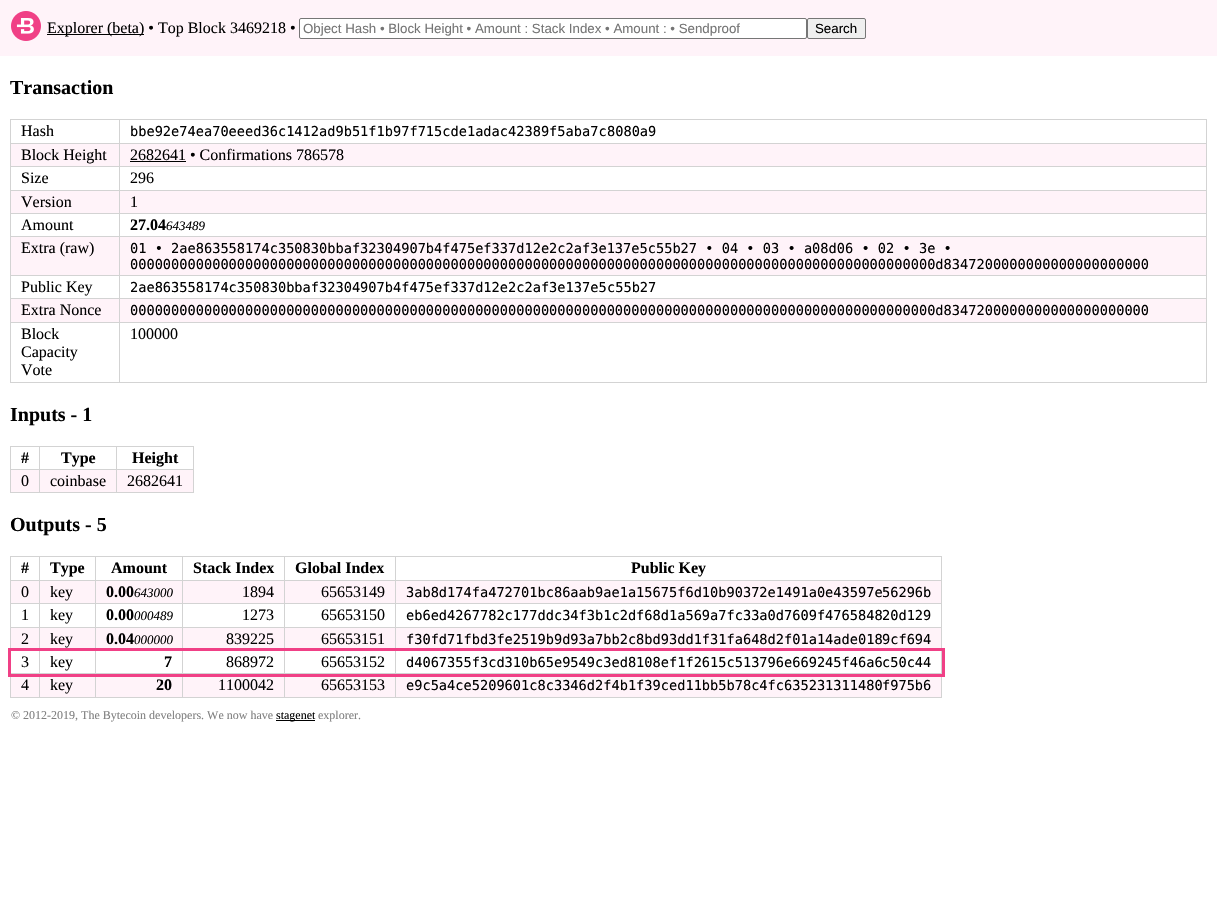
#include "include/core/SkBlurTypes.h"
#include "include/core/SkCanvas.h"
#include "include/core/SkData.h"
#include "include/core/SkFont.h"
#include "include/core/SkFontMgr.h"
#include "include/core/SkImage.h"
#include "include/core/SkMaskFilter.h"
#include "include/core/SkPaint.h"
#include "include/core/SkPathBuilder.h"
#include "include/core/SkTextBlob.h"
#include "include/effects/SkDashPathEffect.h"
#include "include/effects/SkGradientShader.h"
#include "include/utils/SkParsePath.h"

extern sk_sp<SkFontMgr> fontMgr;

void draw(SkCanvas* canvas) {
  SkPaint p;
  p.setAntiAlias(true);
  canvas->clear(SK_ColorWHITE);
  p.setColor(SkColorSetRGB(255, 243, 249));
  canvas->drawRect(SkRect::MakeLTRB(0, 0, 1217, 56), p);
  canvas->drawImageRect(SkImages::DeferredFromEncodedData(SkData::MakeFromFileName("images/1.png")), SkRect::MakeLTRB(11, 11, 41, 41), SkSamplingOptions());
  p.setColor(SK_ColorBLACK);
  canvas->drawRect(SkRect::MakeLTRB(47, 34, 144, 35), p);
  p.setColor(SK_ColorWHITE);
  canvas->drawRoundRect(SkRect::MakeLTRB(299.5f, 18.5f, 806.5f, 38.5f), 1.5f, 1.5f, p);
  p.setStyle(SkPaint::kStroke_Style);
  p.setStrokeWidth(1);
  p.setColor(SkColorSetRGB(118, 118, 118));
  canvas->drawRoundRect(SkRect::MakeLTRB(299.5f, 18.5f, 806.5f, 38.5f), 1.5f, 1.5f, p);
  p.setStyle(SkPaint::kFill_Style);
  p.setColor(SkColorSetRGB(239, 239, 239));
  canvas->drawRoundRect(SkRect::MakeLTRB(807.5f, 18.5f, 865.5f, 38.5f), 1.5f, 1.5f, p);
  p.setStyle(SkPaint::kStroke_Style);
  p.setColor(SkColorSetRGB(118, 118, 118));
  canvas->drawRoundRect(SkRect::MakeLTRB(807.5f, 18.5f, 865.5f, 38.5f), 1.5f, 1.5f, p);
  p.setStyle(SkPaint::kFill_Style);
  p.setColor(SkColorSetRGB(211, 211, 211));
  canvas->drawRect(SkRect::MakeLTRB(119, 119, 1207, 120), p);
  canvas->drawRect(SkRect::MakeLTRB(119, 143, 1207, 144), p);
  p.setColor(SkColorSetRGB(255, 243, 249));
  canvas->drawRect(SkRect::MakeLTRB(11, 144, 1206, 166), p);
  p.setColor(SkColorSetRGB(211, 211, 211));
  canvas->drawRect(SkRect::MakeLTRB(119, 166, 1207, 167), p);
  canvas->drawRect(SkRect::MakeLTRB(119, 190, 1207, 191), p);
  p.setColor(SkColorSetRGB(255, 243, 249));
  canvas->drawRect(SkRect::MakeLTRB(11, 191, 1206, 213), p);
  p.setColor(SkColorSetRGB(211, 211, 211));
  canvas->drawRect(SkRect::MakeLTRB(119, 213, 1207, 214), p);
  canvas->drawRect(SkRect::MakeLTRB(119, 236, 1207, 237), p);
  p.setColor(SkColorSetRGB(255, 243, 249));
  canvas->drawRect(SkRect::MakeLTRB(11, 237, 1206, 275), p);
  p.setColor(SkColorSetRGB(211, 211, 211));
  canvas->drawRect(SkRect::MakeLTRB(119, 275, 1207, 276), p);
  canvas->drawRect(SkRect::MakeLTRB(119, 298, 1207, 299), p);
  p.setColor(SkColorSetRGB(255, 243, 249));
  canvas->drawRect(SkRect::MakeLTRB(11, 299, 1206, 322), p);
  p.setColor(SkColorSetRGB(211, 211, 211));
  canvas->drawRect(SkRect::MakeLTRB(119, 322, 1207, 323), p);
  canvas->drawRect(SkRect::MakeLTRB(1206, 322, 1207, 383), p);
  canvas->drawRect(SkRect::MakeLTRB(119, 382, 1207, 383), p);
  canvas->drawRect(SkRect::MakeLTRB(119, 322, 120, 383), p);
  canvas->drawRect(SkRect::MakeLTRB(10, 322, 120, 323), p);
  canvas->drawRect(SkRect::MakeLTRB(119, 298, 120, 323), p);
  canvas->drawRect(SkRect::MakeLTRB(10, 298, 120, 299), p);
  canvas->drawRect(SkRect::MakeLTRB(119, 275, 120, 299), p);
  canvas->drawRect(SkRect::MakeLTRB(10, 275, 120, 276), p);
  canvas->drawRect(SkRect::MakeLTRB(119, 236, 120, 276), p);
  canvas->drawRect(SkRect::MakeLTRB(10, 236, 120, 237), p);
  canvas->drawRect(SkRect::MakeLTRB(119, 213, 120, 237), p);
  canvas->drawRect(SkRect::MakeLTRB(10, 213, 120, 214), p);
  canvas->drawRect(SkRect::MakeLTRB(119, 190, 120, 214), p);
  canvas->drawRect(SkRect::MakeLTRB(10, 190, 120, 191), p);
  canvas->drawRect(SkRect::MakeLTRB(119, 166, 120, 191), p);
  canvas->drawRect(SkRect::MakeLTRB(10, 166, 120, 167), p);
  canvas->drawRect(SkRect::MakeLTRB(119, 143, 120, 167), p);
  canvas->drawRect(SkRect::MakeLTRB(10, 143, 120, 144), p);
  canvas->drawRect(SkRect::MakeLTRB(119, 119, 120, 144), p);
  canvas->drawRect(SkRect::MakeLTRB(10, 119, 120, 120), p);
  canvas->drawRect(SkRect::MakeLTRB(10, 382, 120, 383), p);
  canvas->drawRect(SkRect::MakeLTRB(10, 322, 11, 383), p);
  canvas->drawRect(SkRect::MakeLTRB(10, 298, 11, 323), p);
  canvas->drawRect(SkRect::MakeLTRB(10, 275, 11, 299), p);
  canvas->drawRect(SkRect::MakeLTRB(10, 236, 11, 276), p);
  canvas->drawRect(SkRect::MakeLTRB(10, 213, 11, 237), p);
  canvas->drawRect(SkRect::MakeLTRB(10, 190, 11, 214), p);
  canvas->drawRect(SkRect::MakeLTRB(10, 166, 11, 191), p);
  canvas->drawRect(SkRect::MakeLTRB(10, 143, 11, 167), p);
  canvas->drawRect(SkRect::MakeLTRB(10, 119, 11, 144), p);
  canvas->drawRect(SkRect::MakeLTRB(1206, 298, 1207, 323), p);
  canvas->drawRect(SkRect::MakeLTRB(1206, 275, 1207, 299), p);
  canvas->drawRect(SkRect::MakeLTRB(1206, 236, 1207, 276), p);
  canvas->drawRect(SkRect::MakeLTRB(1206, 213, 1207, 237), p);
  canvas->drawRect(SkRect::MakeLTRB(1206, 190, 1207, 214), p);
  canvas->drawRect(SkRect::MakeLTRB(1206, 166, 1207, 191), p);
  canvas->drawRect(SkRect::MakeLTRB(1206, 143, 1207, 167), p);
  canvas->drawRect(SkRect::MakeLTRB(1206, 119, 1207, 144), p);
  p.setColor(SK_ColorBLACK);
  canvas->drawRect(SkRect::MakeLTRB(130, 161, 186, 162), p);
  p.setColor(SkColorSetRGB(211, 211, 211));
  canvas->drawRect(SkRect::MakeLTRB(116, 446, 194, 447), p);
  canvas->drawRect(SkRect::MakeLTRB(116, 469, 194, 470), p);
  p.setColor(SkColorSetRGB(255, 243, 249));
  canvas->drawRect(SkRect::MakeLTRB(11, 470, 193, 492), p);
  p.setColor(SkColorSetRGB(211, 211, 211));
  canvas->drawRect(SkRect::MakeLTRB(193, 469, 194, 493), p);
  canvas->drawRect(SkRect::MakeLTRB(116, 492, 194, 493), p);
  canvas->drawRect(SkRect::MakeLTRB(116, 469, 117, 493), p);
  canvas->drawRect(SkRect::MakeLTRB(39, 469, 117, 470), p);
  canvas->drawRect(SkRect::MakeLTRB(116, 446, 117, 470), p);
  canvas->drawRect(SkRect::MakeLTRB(39, 446, 117, 447), p);
  canvas->drawRect(SkRect::MakeLTRB(39, 492, 117, 493), p);
  canvas->drawRect(SkRect::MakeLTRB(39, 469, 40, 493), p);
  canvas->drawRect(SkRect::MakeLTRB(10, 469, 40, 470), p);
  canvas->drawRect(SkRect::MakeLTRB(39, 446, 40, 470), p);
  canvas->drawRect(SkRect::MakeLTRB(10, 446, 40, 447), p);
  canvas->drawRect(SkRect::MakeLTRB(10, 492, 40, 493), p);
  canvas->drawRect(SkRect::MakeLTRB(10, 469, 11, 493), p);
  canvas->drawRect(SkRect::MakeLTRB(10, 446, 11, 470), p);
  canvas->drawRect(SkRect::MakeLTRB(193, 446, 194, 470), p);
  canvas->drawRect(SkRect::MakeLTRB(395, 556, 942, 557), p);
  canvas->drawRect(SkRect::MakeLTRB(395, 580, 942, 581), p);
  p.setColor(SkColorSetRGB(255, 243, 249));
  canvas->drawRect(SkRect::MakeLTRB(11, 581, 941, 603), p);
  p.setColor(SkColorSetRGB(211, 211, 211));
  canvas->drawRect(SkRect::MakeLTRB(395, 603, 942, 604), p);
  canvas->drawRect(SkRect::MakeLTRB(395, 627, 942, 628), p);
  p.setColor(SkColorSetRGB(255, 243, 249));
  canvas->drawRect(SkRect::MakeLTRB(11, 628, 941, 648), p);
  p.setColor(SkColorSetRGB(211, 211, 211));
  canvas->drawRect(SkRect::MakeLTRB(395, 673, 942, 674), p);
  p.setColor(SkColorSetRGB(255, 243, 249));
  canvas->drawRect(SkRect::MakeLTRB(11, 677, 941, 697), p);
  p.setColor(SkColorSetRGB(211, 211, 211));
  canvas->drawRect(SkRect::MakeLTRB(941, 650, 942, 698), p);
  canvas->drawRect(SkRect::MakeLTRB(395, 697, 942, 698), p);
  canvas->drawRect(SkRect::MakeLTRB(395, 673, 396, 698), p);
  canvas->drawRect(SkRect::MakeLTRB(284, 673, 396, 674), p);
  canvas->drawRect(SkRect::MakeLTRB(395, 650, 396, 674), p);
  canvas->drawRect(SkRect::MakeLTRB(395, 627, 396, 651), p);
  canvas->drawRect(SkRect::MakeLTRB(284, 627, 396, 628), p);
  canvas->drawRect(SkRect::MakeLTRB(395, 603, 396, 628), p);
  canvas->drawRect(SkRect::MakeLTRB(284, 603, 396, 604), p);
  canvas->drawRect(SkRect::MakeLTRB(395, 580, 396, 604), p);
  canvas->drawRect(SkRect::MakeLTRB(284, 580, 396, 581), p);
  canvas->drawRect(SkRect::MakeLTRB(395, 556, 396, 581), p);
  canvas->drawRect(SkRect::MakeLTRB(284, 556, 396, 557), p);
  canvas->drawRect(SkRect::MakeLTRB(284, 697, 396, 698), p);
  canvas->drawRect(SkRect::MakeLTRB(284, 673, 285, 698), p);
  canvas->drawRect(SkRect::MakeLTRB(182, 673, 285, 674), p);
  canvas->drawRect(SkRect::MakeLTRB(284, 650, 285, 674), p);
  canvas->drawRect(SkRect::MakeLTRB(284, 627, 285, 651), p);
  canvas->drawRect(SkRect::MakeLTRB(182, 627, 285, 628), p);
  canvas->drawRect(SkRect::MakeLTRB(284, 603, 285, 628), p);
  canvas->drawRect(SkRect::MakeLTRB(182, 603, 285, 604), p);
  canvas->drawRect(SkRect::MakeLTRB(284, 580, 285, 604), p);
  canvas->drawRect(SkRect::MakeLTRB(182, 580, 285, 581), p);
  canvas->drawRect(SkRect::MakeLTRB(284, 556, 285, 581), p);
  canvas->drawRect(SkRect::MakeLTRB(182, 556, 285, 557), p);
  canvas->drawRect(SkRect::MakeLTRB(182, 697, 285, 698), p);
  canvas->drawRect(SkRect::MakeLTRB(182, 673, 183, 698), p);
  canvas->drawRect(SkRect::MakeLTRB(95, 673, 183, 674), p);
  canvas->drawRect(SkRect::MakeLTRB(182, 650, 183, 674), p);
  canvas->drawRect(SkRect::MakeLTRB(182, 627, 183, 651), p);
  canvas->drawRect(SkRect::MakeLTRB(95, 627, 183, 628), p);
  canvas->drawRect(SkRect::MakeLTRB(182, 603, 183, 628), p);
  canvas->drawRect(SkRect::MakeLTRB(95, 603, 183, 604), p);
  canvas->drawRect(SkRect::MakeLTRB(182, 580, 183, 604), p);
  canvas->drawRect(SkRect::MakeLTRB(95, 580, 183, 581), p);
  canvas->drawRect(SkRect::MakeLTRB(182, 556, 183, 581), p);
  canvas->drawRect(SkRect::MakeLTRB(95, 556, 183, 557), p);
  canvas->drawRect(SkRect::MakeLTRB(95, 697, 183, 698), p);
  canvas->drawRect(SkRect::MakeLTRB(95, 673, 96, 698), p);
  canvas->drawRect(SkRect::MakeLTRB(39, 673, 96, 674), p);
  canvas->drawRect(SkRect::MakeLTRB(95, 650, 96, 674), p);
  canvas->drawRect(SkRect::MakeLTRB(95, 627, 96, 651), p);
  canvas->drawRect(SkRect::MakeLTRB(39, 627, 96, 628), p);
  canvas->drawRect(SkRect::MakeLTRB(95, 603, 96, 628), p);
  canvas->drawRect(SkRect::MakeLTRB(39, 603, 96, 604), p);
  canvas->drawRect(SkRect::MakeLTRB(95, 580, 96, 604), p);
  canvas->drawRect(SkRect::MakeLTRB(39, 580, 96, 581), p);
  canvas->drawRect(SkRect::MakeLTRB(95, 556, 96, 581), p);
  canvas->drawRect(SkRect::MakeLTRB(39, 556, 96, 557), p);
  canvas->drawRect(SkRect::MakeLTRB(39, 697, 96, 698), p);
  canvas->drawRect(SkRect::MakeLTRB(39, 673, 40, 698), p);
  canvas->drawRect(SkRect::MakeLTRB(10, 673, 40, 674), p);
  canvas->drawRect(SkRect::MakeLTRB(39, 650, 40, 674), p);
  canvas->drawRect(SkRect::MakeLTRB(39, 627, 40, 651), p);
  canvas->drawRect(SkRect::MakeLTRB(10, 627, 40, 628), p);
  canvas->drawRect(SkRect::MakeLTRB(39, 603, 40, 628), p);
  canvas->drawRect(SkRect::MakeLTRB(10, 603, 40, 604), p);
  canvas->drawRect(SkRect::MakeLTRB(39, 580, 40, 604), p);
  canvas->drawRect(SkRect::MakeLTRB(10, 580, 40, 581), p);
  canvas->drawRect(SkRect::MakeLTRB(39, 556, 40, 581), p);
  canvas->drawRect(SkRect::MakeLTRB(10, 556, 40, 557), p);
  canvas->drawRect(SkRect::MakeLTRB(10, 627, 11, 651), p);
  canvas->drawRect(SkRect::MakeLTRB(10, 603, 11, 628), p);
  canvas->drawRect(SkRect::MakeLTRB(10, 580, 11, 604), p);
  canvas->drawRect(SkRect::MakeLTRB(10, 556, 11, 581), p);
  canvas->drawRect(SkRect::MakeLTRB(941, 627, 942, 651), p);
  canvas->drawRect(SkRect::MakeLTRB(941, 603, 942, 628), p);
  canvas->drawRect(SkRect::MakeLTRB(941, 580, 942, 604), p);
  canvas->drawRect(SkRect::MakeLTRB(941, 556, 942, 581), p);
  canvas->drawRect(SkRect::MakeLTRB(10, 697, 40, 698), p);
  canvas->drawRect(SkRect::MakeLTRB(10, 673, 11, 698), p);
  p.setStyle(SkPaint::kStroke_Style);
  p.setStrokeWidth(3);
  p.setColor(SkColorSetRGB(240, 64, 134));
  canvas->drawRect(SkRect::MakeLTRB(9.5f, 649.5f, 943.5f, 675.5f), p);
  p.setStyle(SkPaint::kFill_Style);
  p.setColor(SK_ColorBLACK);
  canvas->drawRect(SkRect::MakeLTRB(276, 720, 315, 721), p);
  SkFont font1(fontMgr->matchFamilyStyle("Liberation Serif", SkFontStyle::Normal()), 16);
  font1.setSubpixel(true);
  canvas->drawString("Explorer (beta) • Top Block 3469218 •", 47, 33, font1, p);
  SkFont font2(fontMgr->matchFamilyStyle("Liberation Sans", SkFontStyle::Normal()), 13.3f);
  font2.setSubpixel(true);
  p.setColor(SkColorSetRGB(117, 117, 117));
  canvas->drawString("Object Hash • Block Height • Amount : Stack Index • Amount : • Sendproof", 303, 33, font2, p);
  p.setColor(SK_ColorBLACK);
  canvas->drawString("Search", 815, 33, font2, p);
  SkFont font3(fontMgr->matchFamilyStyle("Liberation Serif", SkFontStyle::Bold()), 20);
  font3.setSubpixel(true);
  canvas->drawString("Transaction", 10, 94, font3, p);
  canvas->drawString("Hash", 21, 136, font1, p);
  SkFont font4(fontMgr->matchFamilyStyle("DejaVu Sans Mono", SkFontStyle::Normal()), 13.65f);
  font4.setSubpixel(true);
  canvas->drawString("bbe92e74ea70eeed36c1412ad9b51f1b97f715cde1adac42389f5aba7c", 130, 136, font4, p);
  canvas->drawString("8080a9", 607, 136, font4, p);
  canvas->drawString("Block Height", 21, 160, font1, p);
  canvas->drawString("2682641 • Confirmations 786578", 130, 160, font1, p);
  canvas->drawString("Size", 21, 183, font1, p);
  canvas->drawString("296", 130, 183, font1, p);
  canvas->drawString("Version", 21, 207, font1, p);
  canvas->drawString("1", 130, 207, font1, p);
  canvas->drawString("Amount", 21, 230, font1, p);
  SkFont font5(fontMgr->matchFamilyStyle("Liberation Serif", SkFontStyle::Bold()), 16);
  font5.setSubpixel(true);
  canvas->drawString("27.04", 130, 230, font5, p);
  SkFont font6(fontMgr->matchFamilyStyle("Liberation Serif", SkFontStyle::Italic()), 13);
  font6.setSubpixel(true);
  canvas->drawString("643489", 166, 230, font6, p);
  canvas->drawString("Extra (raw)", 21, 253, font1, p);
  canvas->drawString("01 • 2ae863558174c350830bbaf32304907b4f475ef337d12e2c2af3e137e5c55b27 • 04 • 03 • a08d06 • 02 • 3e •", 130, 253, font4, p);
  canvas->drawString("00000000000000000000000000000000000000000000000000000000000000000000000000000000000000000000000000d8347200000000000000000000", 130, 269, font4, p);
  canvas->drawString("Public Key", 21, 292, font1, p);
  canvas->drawString("2ae863558174c350830bbaf32304907b4f475ef337d12e2c2af3e137e5", 130, 292, font4, p);
  canvas->drawString("c55b27", 607, 292, font4, p);
  canvas->drawString("Extra Nonce", 21, 315, font1, p);
  canvas->drawString("00000000000000000000000000000000000000000000000000000000000000000000000000000000000000000000000000d8347200000000000000000000", 130, 315, font4, p);
  canvas->drawString("Block", 21, 339, font1, p);
  canvas->drawString("Capacity", 21, 357, font1, p);
  canvas->drawString("Vote", 21, 375, font1, p);
  canvas->drawString("100000", 130, 339, font1, p);
  canvas->drawString("Inputs - 1", 10, 421, font3, p);
  canvas->drawString("#", 21, 463, font5, p);
  canvas->drawString("Type", 61, 463, font5, p);
  canvas->drawString("Height", 132, 463, font5, p);
  canvas->drawString("0", 21, 486, font1, p);
  canvas->drawString("coinbase", 50, 486, font1, p);
  canvas->drawString("2682641", 127, 486, font1, p);
  canvas->drawString("Outputs - 5", 10, 531, font3, p);
  canvas->drawString("#", 21, 573, font5, p);
  canvas->drawString("Type", 50, 573, font5, p);
  canvas->drawString("Amount", 111, 573, font5, p);
  canvas->drawString("Stack Index", 193, 573, font5, p);
  canvas->drawString("Global Index", 295, 573, font5, p);
  canvas->drawString("Public Key", 631, 573, font5, p);
  canvas->drawString("0", 21, 597, font1, p);
  canvas->drawString("key", 50, 597, font1, p);
  canvas->drawString("0.00", 106, 597, font5, p);
  canvas->drawString("643000", 134, 597, font6, p);
  canvas->drawString("1894", 242, 597, font1, p);
  canvas->drawString("65653149", 321, 597, font1, p);
  canvas->drawString("3ab8d174fa472701bc86aab9ae1a15675f6d10b90372e1491a0e43597e", 406, 597, font4, p);
  canvas->drawString("56296b", 882, 597, font4, p);
  canvas->drawString("1", 21, 620, font1, p);
  canvas->drawString("key", 50, 620, font1, p);
  canvas->drawString("0.00", 106, 620, font5, p);
  canvas->drawString("000489", 134, 620, font6, p);
  canvas->drawString("1273", 242, 620, font1, p);
  canvas->drawString("65653150", 321, 620, font1, p);
  canvas->drawString("eb6ed4267782c177ddc34f3b1c2df68d1a569a7fc33a0d7609f4765848", 406, 620, font4, p);
  canvas->drawString("20d129", 882, 620, font4, p);
  canvas->drawString("2", 21, 644, font1, p);
  canvas->drawString("key", 50, 644, font1, p);
  canvas->drawString("0.04", 106, 644, font5, p);
  canvas->drawString("000000", 134, 644, font6, p);
  canvas->drawString("839225", 226, 644, font1, p);
  canvas->drawString("65653151", 321, 644, font1, p);
  canvas->drawString("f30fd71fbd3fe2519b9d93a7bb2c8bd93dd1f31fa648d2f01a14ade018", 406, 644, font4, p);
  canvas->drawString("9cf694", 882, 644, font4, p);
  canvas->drawString("3", 21, 667, font1, p);
  canvas->drawString("key", 50, 667, font1, p);
  canvas->drawString("7", 164, 667, font5, p);
  canvas->drawString("868972", 226, 667, font1, p);
  canvas->drawString("65653152", 321, 667, font1, p);
  canvas->drawString("d4067355f3cd310b65e9549c3ed8108ef1f2615c513796e669245f46a6", 406, 667, font4, p);
  canvas->drawString("c50c44", 882, 667, font4, p);
  canvas->drawString("4", 21, 690, font1, p);
  canvas->drawString("key", 50, 690, font1, p);
  canvas->drawString("20", 156, 690, font5, p);
  canvas->drawString("1100042", 218, 690, font1, p);
  canvas->drawString("65653153", 321, 690, font1, p);
  canvas->drawString("e9c5a4ce5209601c8c3346d2f4b1f39ced11bb5b78c4fc635231311480", 406, 690, font4, p);
  canvas->drawString("f975b6", 882, 690, font4, p);
  SkFont font7(fontMgr->matchFamilyStyle("Liberation Serif", SkFontStyle::Normal()), 12);
  font7.setSubpixel(true);
  p.setColor(SkColorSetRGB(128, 128, 128));
  canvas->drawString("© 2012-2019, The Bytecoin developers. We now have", 11, 719, font7, p);
  p.setColor(SK_ColorBLACK);
  canvas->drawString("stagenet", 276, 719, font7, p);
  p.setColor(SkColorSetRGB(128, 128, 128));
  canvas->drawString("explorer.", 318, 719, font7, p);
}
